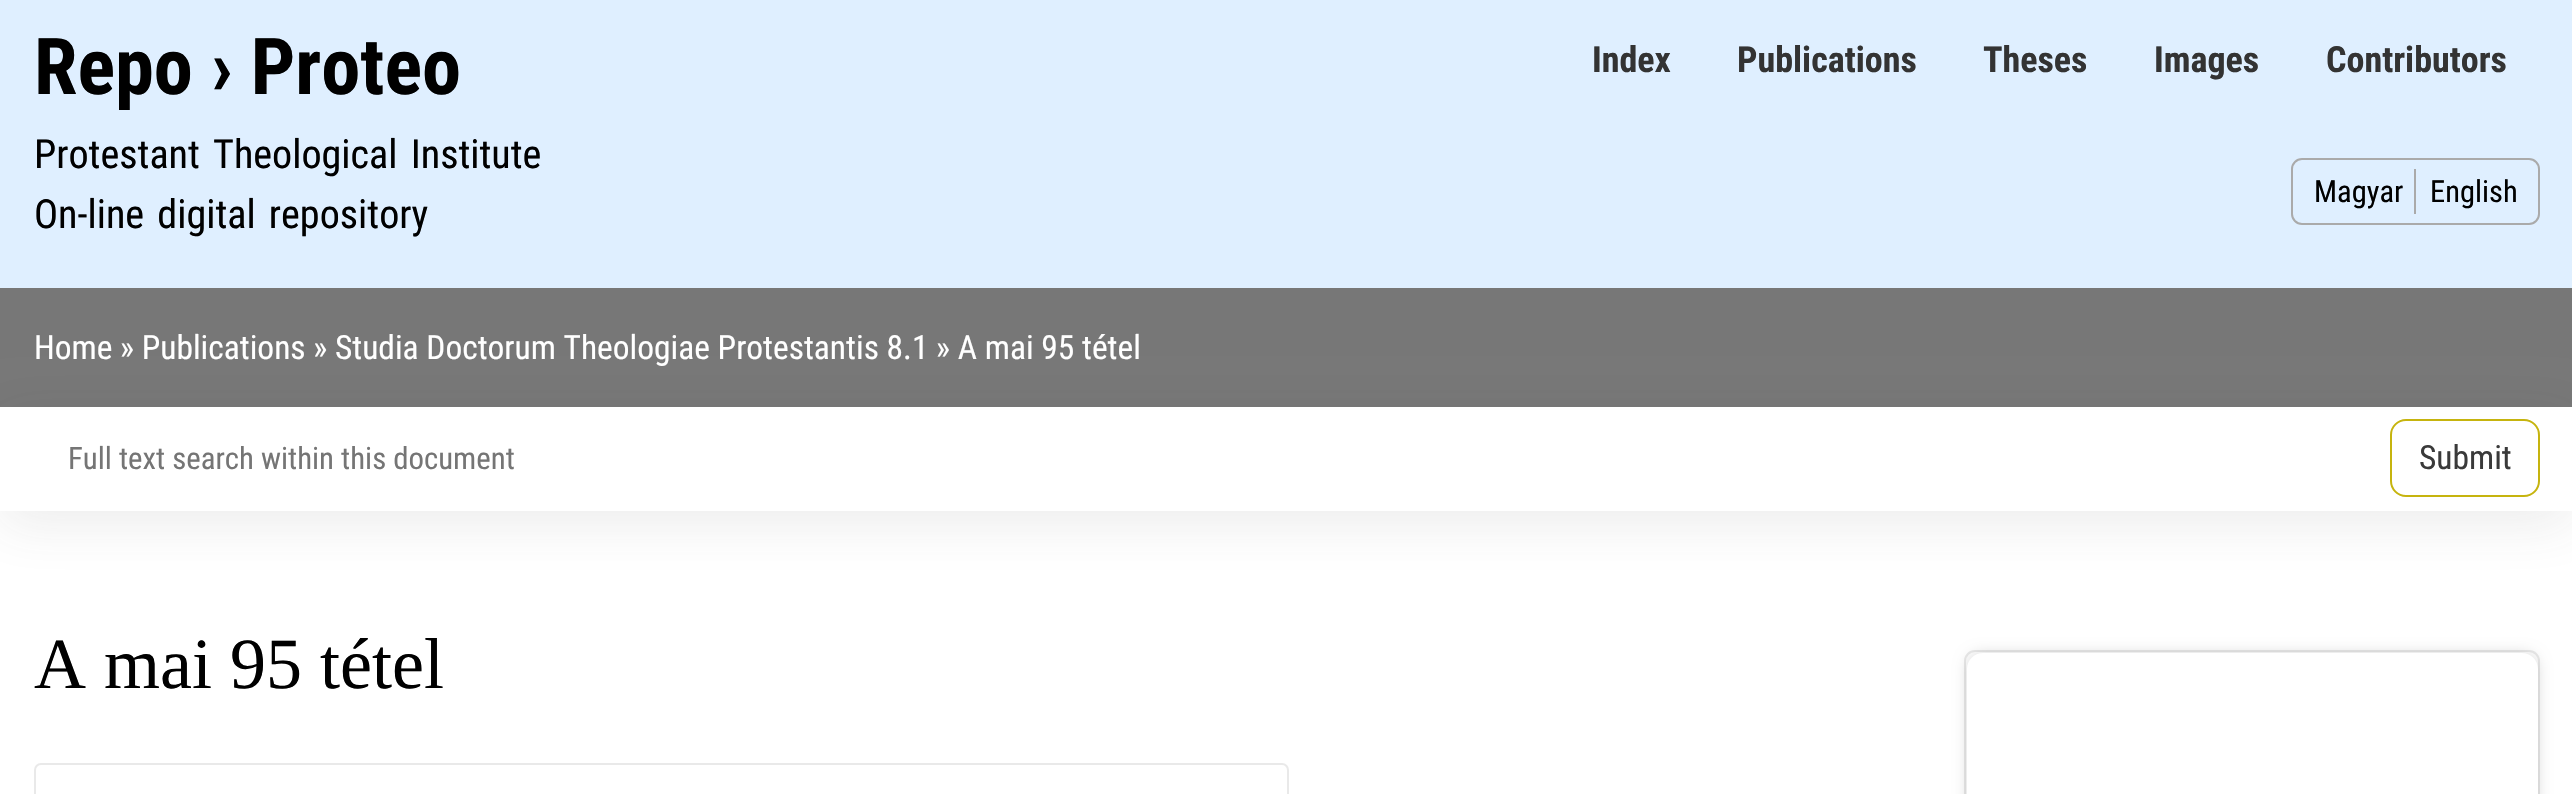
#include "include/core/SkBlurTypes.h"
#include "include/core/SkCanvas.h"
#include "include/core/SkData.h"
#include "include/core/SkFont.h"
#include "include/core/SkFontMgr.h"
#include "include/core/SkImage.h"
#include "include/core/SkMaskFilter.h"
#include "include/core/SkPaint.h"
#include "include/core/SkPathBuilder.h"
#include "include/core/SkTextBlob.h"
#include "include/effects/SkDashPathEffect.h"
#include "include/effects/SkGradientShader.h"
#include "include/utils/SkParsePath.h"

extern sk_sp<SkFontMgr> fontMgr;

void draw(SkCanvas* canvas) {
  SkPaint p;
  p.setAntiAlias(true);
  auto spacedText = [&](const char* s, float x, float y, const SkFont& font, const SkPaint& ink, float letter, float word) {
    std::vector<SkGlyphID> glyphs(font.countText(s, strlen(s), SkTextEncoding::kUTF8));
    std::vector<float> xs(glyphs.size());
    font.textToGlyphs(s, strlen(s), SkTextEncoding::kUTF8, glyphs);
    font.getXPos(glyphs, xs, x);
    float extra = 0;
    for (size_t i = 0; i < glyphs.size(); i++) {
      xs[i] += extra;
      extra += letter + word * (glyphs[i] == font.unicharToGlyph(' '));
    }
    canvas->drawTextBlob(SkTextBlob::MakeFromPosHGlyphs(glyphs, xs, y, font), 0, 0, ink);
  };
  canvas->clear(SK_ColorWHITE);
  p.setColor(SkColorSetRGB(223, 239, 255));
  canvas->drawRect(SkRect::MakeLTRB(0, 0, 2572, 288), p);
  p.setStyle(SkPaint::kStroke_Style);
  p.setStrokeWidth(2);
  p.setColor(SkColorSetRGB(170, 170, 170));
  canvas->drawRoundRect(SkRect::MakeLTRB(2292, 159, 2539, 224), 10, 10, p);
  p.setStyle(SkPaint::kFill_Style);
  canvas->drawRect(SkRect::MakeLTRB(2414, 169, 2416, 214), p);
  p.setColor(SkColorSetRGB(119, 119, 119));
  canvas->drawRect(SkRect::MakeLTRB(0, 288, 2572, 407), p);
  canvas->save();
  canvas->clipPath(SkPathBuilder(SkPathFillType::kEvenOdd).moveTo(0, 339).lineTo(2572, 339).lineTo(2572, 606).lineTo(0, 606).close().moveTo(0, 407).lineTo(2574, 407).lineTo(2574, 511).lineTo(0, 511).close().detach(), true);
  p.setColor(SkColorSetARGB(26, 68, 67, 68));
  p.setMaskFilter(SkMaskFilter::MakeBlur(kNormal_SkBlurStyle, 27));
  canvas->drawRect(SkRect::MakeLTRB(0, 421, 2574, 524), p);
  p.setMaskFilter(nullptr);
  canvas->restore();
  p.setColor(SK_ColorWHITE);
  canvas->drawRect(SkRect::MakeLTRB(34, 510, 2540, 511), p);
  p.setStyle(SkPaint::kStroke_Style);
  p.setColor(SkColorSetRGB(198, 180, 14));
  canvas->drawRoundRect(SkRect::MakeLTRB(2391, 420, 2539, 496), 15, 15, p);
  p.setColor(SkColorSetRGB(233, 233, 233));
  canvas->drawRoundRect(SkRect::MakeLTRB(35, 764, 1288, 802), 6, 6, p);
  canvas->drawRoundRect(SkRect::MakeLTRB(1965, 651, 2539, 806), 10, 10, p);
  canvas->save();
  canvas->clipPath(SkPathBuilder(SkPathFillType::kEvenOdd).moveTo(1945, 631).lineTo(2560, 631).lineTo(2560, 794).lineTo(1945, 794).close().moveTo(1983, 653).lineTo(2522, 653).cubicTo(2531, 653, 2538, 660, 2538, 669).lineTo(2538, 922).cubicTo(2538, 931, 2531, 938, 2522, 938).lineTo(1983, 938).cubicTo(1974, 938, 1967, 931, 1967, 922).lineTo(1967, 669).cubicTo(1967, 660, 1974, 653, 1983, 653).close().detach(), true);
  p.setStyle(SkPaint::kFill_Style);
  p.setColor(SkColorSetARGB(38, 0, 0, 0));
  p.setMaskFilter(SkMaskFilter::MakeBlur(kNormal_SkBlurStyle, 7));
  canvas->drawRoundRect(SkRect::MakeLTRB(1967, 653, 2538, 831), 16, 16, p);
  p.setMaskFilter(nullptr);
  canvas->restore();
  SkFont font1(fontMgr->matchFamilyStyle("Roboto Condensed", SkFontStyle::Bold()), 78.5f);
  font1.setSubpixel(true);
  p.setColor(SK_ColorBLACK);
  canvas->drawString("Repo › Proteo", 34, 94, font1, p);
  SkFont font2(fontMgr->matchFamilyStyle("Roboto Condensed", SkFontStyle::Normal()), 40.1f);
  font2.setSubpixel(true);
  spacedText("Protestant Theological Institute", 34, 168, font2, p, 0, 4);
  spacedText("On-line digital repository", 34, 228, font2, p, 0, 4);
  SkFont font3(fontMgr->matchFamilyStyle("Roboto Condensed", SkFontStyle::Normal()), 30.5f);
  font3.setSubpixel(true);
  canvas->drawString("Magyar", 2314, 202, font3, p);
  canvas->drawString("English", 2430, 202, font3, p);
  SkFont font4(fontMgr->matchFamilyStyle("Roboto Condensed", SkFontStyle::Bold()), 36);
  font4.setSubpixel(true);
  p.setColor(SkColorSetRGB(51, 51, 51));
  canvas->drawString("Index", 1592, 72, font4, p);
  canvas->drawString("Publications", 1737, 72, font4, p);
  canvas->drawString("Theses", 1983, 72, font4, p);
  canvas->drawString("Images", 2154, 72, font4, p);
  canvas->drawString("Contributors", 2326, 72, font4, p);
  SkFont font5(fontMgr->matchFamilyStyle("Roboto Condensed", SkFontStyle::Normal()), 33.45f);
  font5.setSubpixel(true);
  p.setColor(SK_ColorWHITE);
  canvas->drawString("Home » Publications » Studia Doctorum Theologiae Protestantis 8.1 » A mai 95 tétel", 34, 359, font5, p);
  SkFont font6(fontMgr->matchFamilyStyle("Roboto Condensed", SkFontStyle::Normal()), 30.8f);
  font6.setSubpixel(true);
  p.setColor(SkColorSetRGB(117, 117, 117));
  canvas->drawString("Full text search within this document", 68, 469, font6, p);
  p.setColor(SkColorSetRGB(58, 58, 58));
  canvas->drawString("Submit", 2419, 469, font5, p);
  SkFont font7(fontMgr->matchFamilyStyle("Liberation Serif", SkFontStyle::Normal()), 72);
  font7.setSubpixel(true);
  p.setColor(SK_ColorBLACK);
  canvas->drawString("A mai 95 tétel", 34, 688, font7, p);
}
